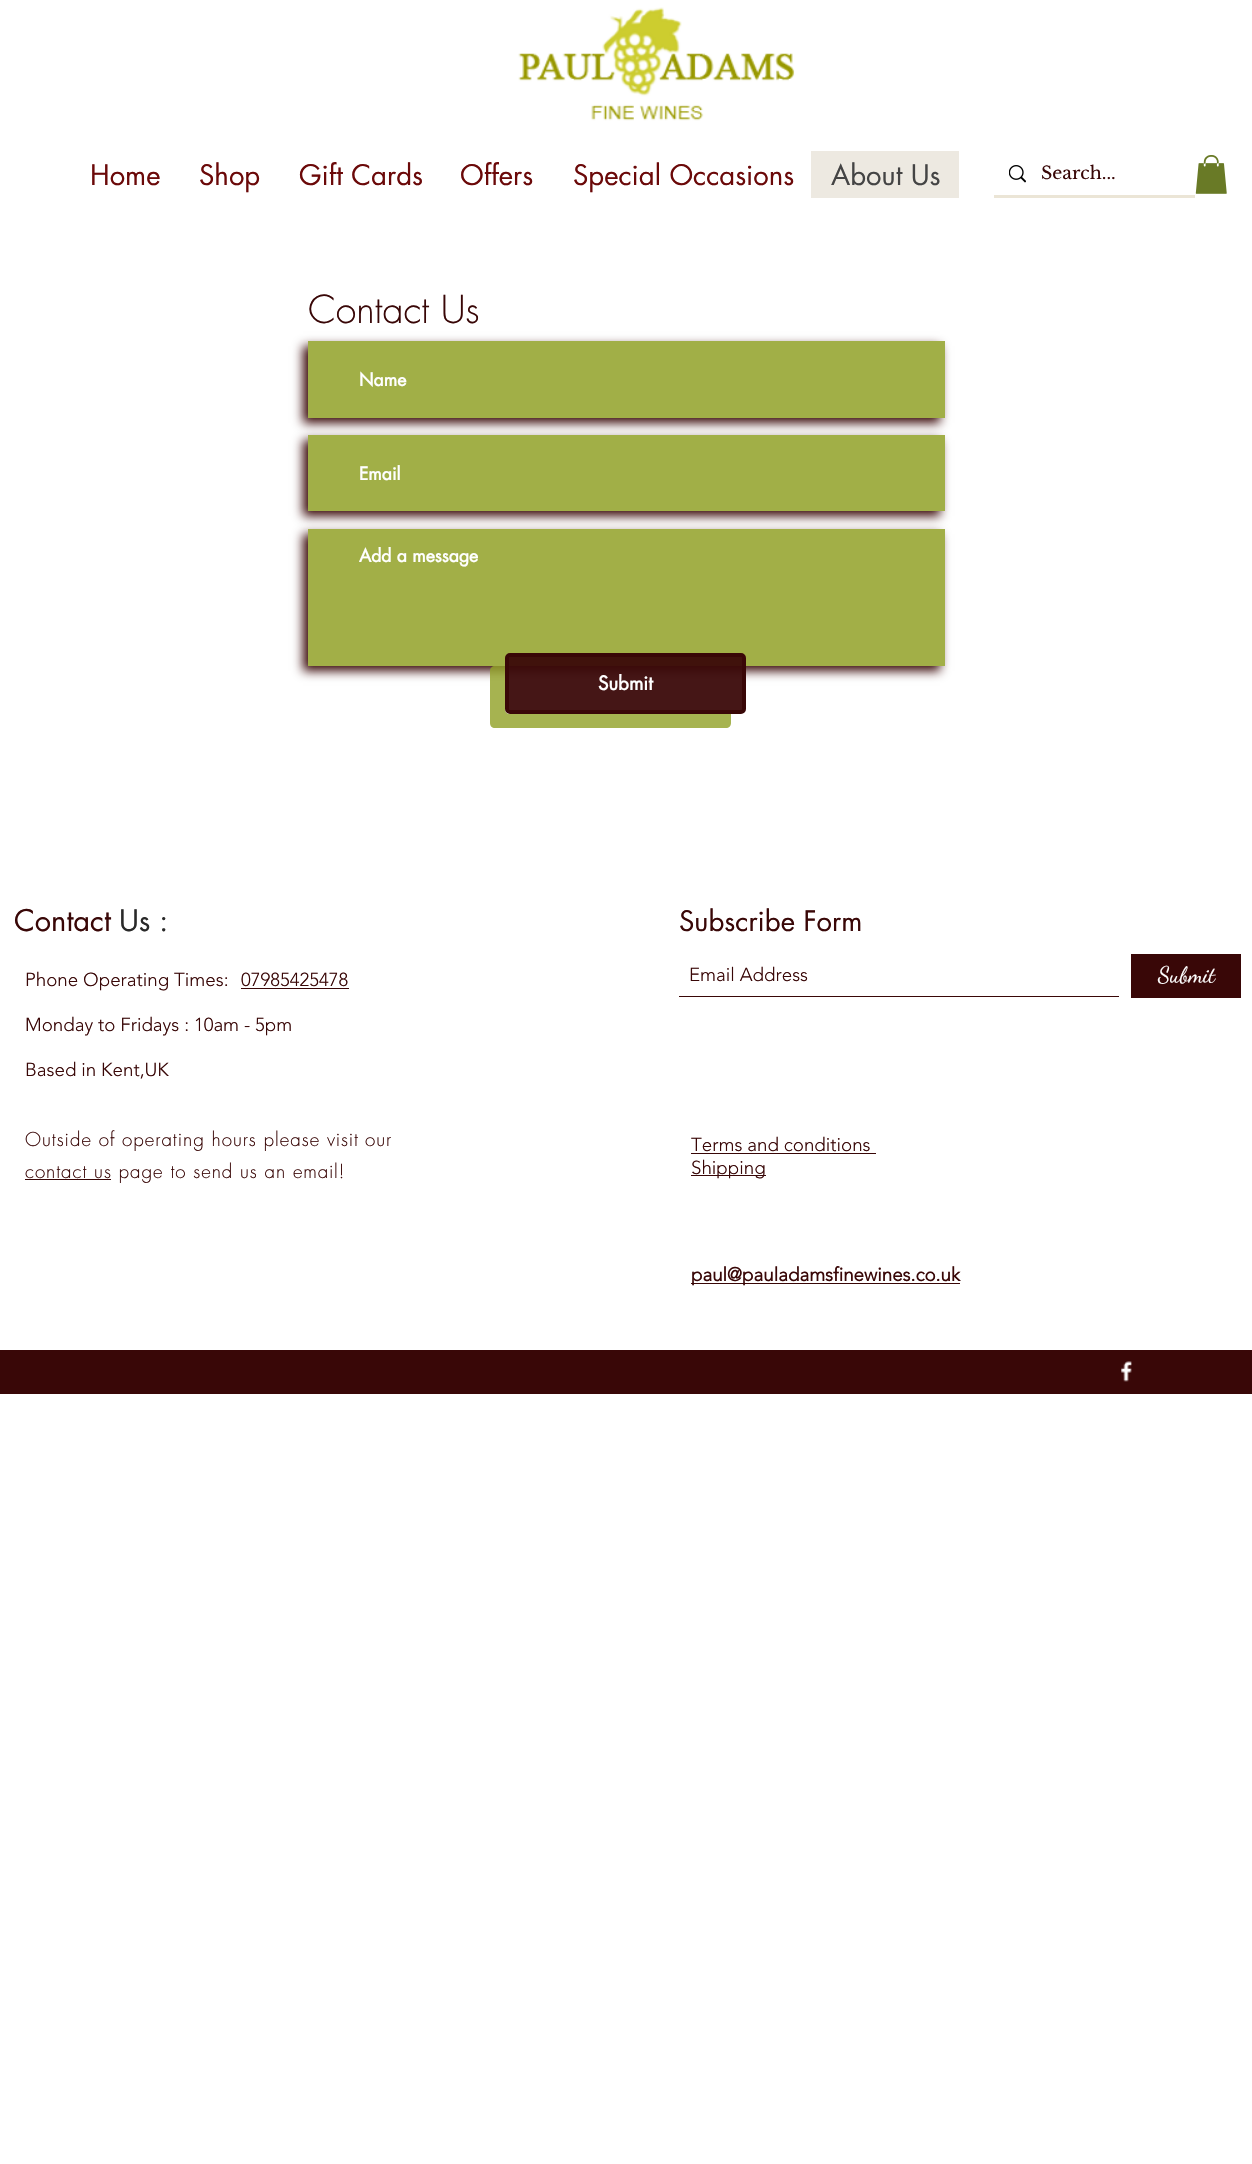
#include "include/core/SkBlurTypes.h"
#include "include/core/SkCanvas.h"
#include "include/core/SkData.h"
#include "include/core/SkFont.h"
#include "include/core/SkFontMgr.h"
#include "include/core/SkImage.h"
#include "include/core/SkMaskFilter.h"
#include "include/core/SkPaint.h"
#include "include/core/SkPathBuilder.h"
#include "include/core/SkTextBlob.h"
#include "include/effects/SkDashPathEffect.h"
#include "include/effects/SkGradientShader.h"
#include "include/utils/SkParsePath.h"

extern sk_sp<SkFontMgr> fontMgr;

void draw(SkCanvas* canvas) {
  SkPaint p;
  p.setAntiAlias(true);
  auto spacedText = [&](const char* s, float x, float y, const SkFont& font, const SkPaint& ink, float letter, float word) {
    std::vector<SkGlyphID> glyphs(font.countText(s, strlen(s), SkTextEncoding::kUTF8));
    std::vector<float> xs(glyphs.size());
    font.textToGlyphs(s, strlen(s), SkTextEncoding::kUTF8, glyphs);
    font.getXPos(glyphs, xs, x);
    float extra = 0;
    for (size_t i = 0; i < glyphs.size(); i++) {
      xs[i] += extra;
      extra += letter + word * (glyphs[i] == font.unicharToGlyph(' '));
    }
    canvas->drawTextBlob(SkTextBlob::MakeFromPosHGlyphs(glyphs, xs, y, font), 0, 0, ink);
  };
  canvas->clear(SK_ColorWHITE);
  canvas->drawImageRect(SkImages::DeferredFromEncodedData(SkData::MakeFromFileName("images/1.png")), SkRect::MakeLTRB(518, 7, 795, 121), SkSamplingOptions());
  p.setColor(SkColorSetRGB(237, 233, 225));
  canvas->drawRect(SkRect::MakeLTRB(811, 151, 959, 198), p);
  p.setColor(SkColorSetRGB(235, 229, 214));
  canvas->drawRect(SkRect::MakeLTRB(994, 195, 1195, 198), p);
  canvas->drawImageRect(SkImages::DeferredFromEncodedData(SkData::MakeFromFileName("images/2.png")), SkRect::MakeLTRB(1009, 165, 1026, 183), SkSamplingOptions());
  canvas->drawImageRect(SkImages::DeferredFromEncodedData(SkData::MakeFromFileName("images/3.png")), SkRect::MakeLTRB(1195, 155, 1227, 194), SkSamplingOptions());
  canvas->save();
  canvas->clipPath(SkPathBuilder(SkPathFillType::kEvenOdd).moveTo(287, 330).lineTo(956, 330).lineTo(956, 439).lineTo(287, 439).close().moveTo(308, 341).lineTo(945, 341).lineTo(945, 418).lineTo(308, 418).close().detach(), true);
  p.setColor(SkColorSetRGB(57, 7, 7));
  p.setMaskFilter(SkMaskFilter::MakeBlur(kNormal_SkBlurStyle, 5));
  canvas->drawRect(SkRect::MakeLTRB(303, 346, 940, 423), p);
  p.setMaskFilter(nullptr);
  canvas->restore();
  p.setColor(SkColorSetARGB(217, 145, 161, 39));
  canvas->drawRect(SkRect::MakeLTRB(308, 341, 945, 418), p);
  p.setColor(SkColorSetRGB(57, 7, 7));
  p.setMaskFilter(SkMaskFilter::MakeBlur(kNormal_SkBlurStyle, 5));
  canvas->drawRect(SkRect::MakeLTRB(303, 440, 940, 516), p);
  p.setMaskFilter(nullptr);
  p.setColor(SkColorSetRGB(161, 175, 71));
  canvas->drawRect(SkRect::MakeLTRB(308, 435, 945, 511), p);
  p.setColor(SkColorSetRGB(57, 7, 7));
  p.setMaskFilter(SkMaskFilter::MakeBlur(kNormal_SkBlurStyle, 5));
  canvas->drawRect(SkRect::MakeLTRB(303, 534, 940, 671), p);
  p.setMaskFilter(nullptr);
  p.setColor(SkColorSetRGB(162, 175, 71));
  canvas->drawRect(SkRect::MakeLTRB(308, 529, 945, 666), p);
  p.setColor(SkColorSetARGB(207, 145, 161, 39));
  canvas->drawPath(SkPathBuilder().moveTo(495, 666).cubicTo(492, 666, 490, 668, 490, 671).lineTo(490, 723).cubicTo(490, 726, 492, 728, 495, 728).lineTo(726, 728).cubicTo(729, 728, 731, 726, 731, 723).lineTo(731, 714).lineTo(510, 714).cubicTo(507, 714, 505, 712, 505, 709).lineTo(505, 666).close().detach(), p);
  p.setColor(SkColorSetARGB(240, 57, 7, 7));
  canvas->drawRoundRect(SkRect::MakeLTRB(507, 655, 744, 712), 3, 3, p);
  p.setStyle(SkPaint::kStroke_Style);
  p.setStrokeWidth(4);
  p.setColor(SkColorSetRGB(57, 7, 7));
  canvas->drawRoundRect(SkRect::MakeLTRB(507, 655, 744, 712), 3, 3, p);
  p.setStyle(SkPaint::kFill_Style);
  canvas->drawRect(SkRect::MakeLTRB(679, 996, 1119, 997), p);
  canvas->drawRect(SkRect::MakeLTRB(1131, 954, 1241, 998), p);
  canvas->drawRect(SkRect::MakeLTRB(241, 988, 349, 989), p);
  canvas->drawRect(SkRect::MakeLTRB(25, 1179, 111, 1180), p);
  canvas->drawRect(SkRect::MakeLTRB(691, 1153, 876, 1154), p);
  canvas->drawRect(SkRect::MakeLTRB(691, 1175, 766, 1176), p);
  canvas->drawRect(SkRect::MakeLTRB(691, 1283, 960, 1284), p);
  canvas->drawRect(SkRect::MakeLTRB(0, 1350, 1252, 1394), p);
  canvas->drawImageRect(SkImages::DeferredFromEncodedData(SkData::MakeFromFileName("images/4.png")), SkRect::MakeLTRB(1121, 1361, 1132, 1382), SkSamplingOptions());
  SkFont font1(fontMgr->matchFamilyStyle("futura", SkFontStyle::Normal()), 27.5f);
  font1.setSubpixel(true);
  p.setColor(SkColorSetRGB(107, 9, 9));
  canvas->drawString("Home", 90, 185, font1, p);
  canvas->drawString("Shop", 199, 185, font1, p);
  canvas->drawString("Gift Cards", 299, 185, font1, p);
  canvas->drawString("Offers", 460, 185, font1, p);
  canvas->drawString("Special Occasions", 573, 185, font1, p);
  p.setColor(SkColorSetRGB(68, 68, 68));
  canvas->drawString("About Us", 831, 185, font1, p);
  SkFont font2(fontMgr->matchFamilyStyle("Libre Baskerville", SkFontStyle::Normal()), 17.5f);
  font2.setSubpixel(true);
  p.setColor(SkColorSetRGB(57, 7, 7));
  canvas->drawString("Search...", 1041, 179, font2, p);
  SkFont font3(fontMgr->matchFamilyStyle("futura", SkFontStyle(300, SkFontStyle::kNormal_Width, SkFontStyle::kUpright_Slant)), 37.5f);
  font3.setSubpixel(true);
  canvas->drawString("Contact Us", 308, 323, font3, p);
  SkFont font4(fontMgr->matchFamilyStyle("futura", SkFontStyle::Bold()), 17.5f);
  font4.setSubpixel(true);
  p.setColor(SK_ColorWHITE);
  canvas->drawString("Name", 359, 386, font4, p);
  canvas->drawString("Email", 359, 480, font4, p);
  canvas->drawString("Add a message", 359, 562, font4, p);
  SkFont font5(fontMgr->matchFamilyStyle("futura", SkFontStyle::Bold()), 18.75f);
  font5.setSubpixel(true);
  canvas->drawString("Submit", 598, 690, font5, p);
  SkFont font6(fontMgr->matchFamilyStyle("futura", SkFontStyle::Normal()), 29);
  font6.setSubpixel(true);
  p.setColor(SkColorSetRGB(57, 7, 7));
  canvas->drawString("Contact", 14, 931, font6, p);
  p.setColor(SkColorSetRGB(41, 41, 41));
  canvas->drawString("Us :", 119, 931, font6, p);
  p.setColor(SkColorSetRGB(57, 7, 7));
  canvas->drawString("Subscribe Form", 679, 931, font1, p);
  SkFont font7(fontMgr->matchFamilyStyle("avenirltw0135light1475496", SkFontStyle(300, SkFontStyle::kNormal_Width, SkFontStyle::kUpright_Slant)), 18.75f);
  font7.setSubpixel(true);
  canvas->drawString("Email Address", 689, 981, font7, p);
  SkFont font8(fontMgr->matchFamilyStyle("Dancing Script", SkFontStyle::Normal()), 22.5f);
  font8.setSubpixel(true);
  p.setColor(SK_ColorWHITE);
  canvas->drawString("Submit", 1158, 982, font8, p);
  p.setColor(SkColorSetRGB(57, 7, 7));
  canvas->drawString("Phone Operating Times:", 25, 986, font7, p);
  canvas->drawString("Monday to Fridays : 10am - 5pm", 25, 1031, font7, p);
  canvas->drawString("Based in Kent,UK", 25, 1076, font7, p);
  canvas->drawString("07985425478", 241, 986, font7, p);
  SkFont font9(fontMgr->matchFamilyStyle("futura", SkFontStyle(300, SkFontStyle::kNormal_Width, SkFontStyle::kUpright_Slant)), 18.75f);
  font9.setSubpixel(true);
  spacedText("Outside of operating hours please", 25, 1146, font9, p, 0.95f, 0);
  spacedText("visit", 327, 1146, font9, p, 0.75f, 0);
  spacedText("our", 365, 1146, font9, p, 0.95f, 0);
  spacedText("contact us page to send us an", 25, 1178, font9, p, 0.95f, 0);
  spacedText("email!", 293, 1178, font9, p, 0.75f, 0);
  canvas->drawString("Terms and conditions", 691, 1151, font7, p);
  canvas->drawString("Shipping", 691, 1174, font7, p);
  SkFont font10(fontMgr->matchFamilyStyle("avenirltw0135light1475496", SkFontStyle::Bold()), 18.75f);
  font10.setSubpixel(true);
  canvas->drawString("paul@pauladamsfinewines.co.uk", 691, 1281, font10, p);
}
